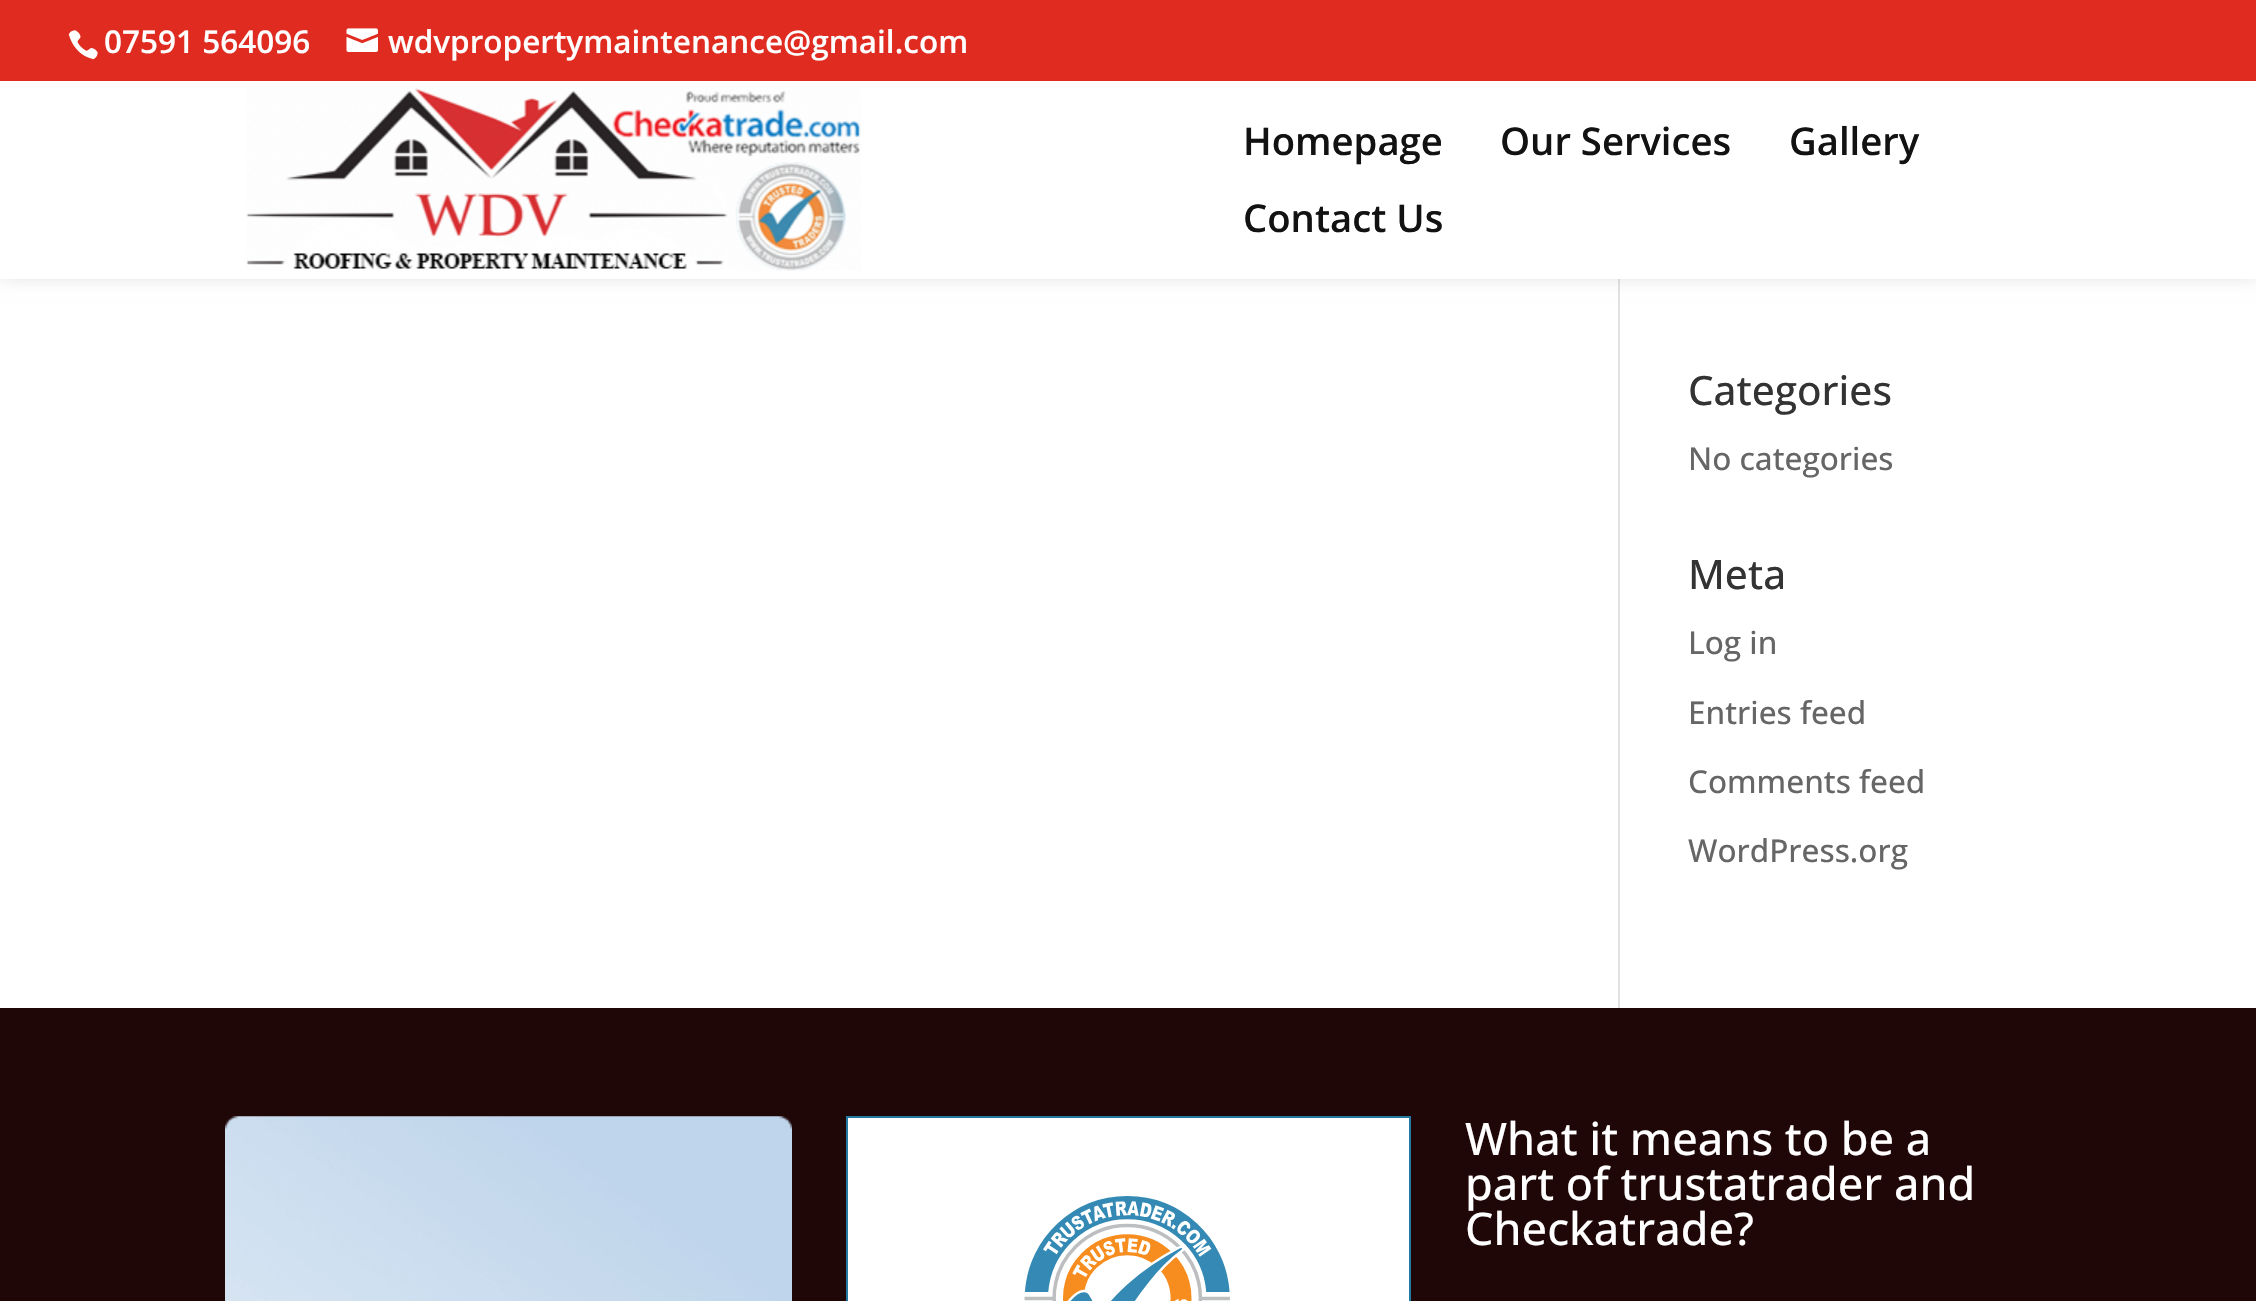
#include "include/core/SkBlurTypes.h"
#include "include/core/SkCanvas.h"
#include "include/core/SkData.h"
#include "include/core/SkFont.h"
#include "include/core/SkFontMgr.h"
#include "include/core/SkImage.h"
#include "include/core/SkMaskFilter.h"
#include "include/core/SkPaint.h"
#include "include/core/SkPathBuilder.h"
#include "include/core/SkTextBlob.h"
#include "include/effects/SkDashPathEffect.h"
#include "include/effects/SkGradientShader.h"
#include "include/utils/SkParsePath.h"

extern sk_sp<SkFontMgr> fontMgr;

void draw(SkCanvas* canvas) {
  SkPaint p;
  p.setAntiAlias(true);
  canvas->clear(SK_ColorWHITE);
  p.setColor(SkColorSetRGB(226, 226, 226));
  canvas->drawRect(SkRect::MakeLTRB(1618, 279, 1620, 1008), p);
  p.setColor(SkColorSetARGB(26, 0, 0, 0));
  p.setMaskFilter(SkMaskFilter::MakeBlur(kNormal_SkBlurStyle, 8));
  canvas->drawRect(SkRect::MakeLTRB(0, 81, 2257, 279), p);
  p.setMaskFilter(nullptr);
  p.setColor(SkColorSetRGB(224, 43, 32));
  canvas->drawRect(SkRect::MakeLTRB(0, 0, 2256, 81), p);
  canvas->drawImageRect(SkImages::DeferredFromEncodedData(SkData::MakeFromFileName("images/1.png")), SkRect::MakeLTRB(68, 30, 98, 60), SkSamplingOptions());
  canvas->drawImageRect(SkImages::DeferredFromEncodedData(SkData::MakeFromFileName("images/2.png")), SkRect::MakeLTRB(346, 28, 378, 52), SkSamplingOptions());
  p.setColor(SK_ColorWHITE);
  canvas->drawRect(SkRect::MakeLTRB(0, 81, 2256, 279), p);
  canvas->drawImageRect(SkImages::DeferredFromEncodedData(SkData::MakeFromFileName("images/3.png")), SkRect::MakeLTRB(246, 88, 861, 271), SkSamplingOptions());
  p.setColor(SkColorSetRGB(31, 7, 7));
  canvas->drawRect(SkRect::MakeLTRB(0, 1008, 2256, 1301), p);
  canvas->drawImageRect(SkImages::DeferredFromEncodedData(SkData::MakeFromFileName("images/4.png")), SkRect::MakeLTRB(225, 1116, 792, 1301), SkSamplingOptions());
  p.setColor(SK_ColorWHITE);
  canvas->drawRect(SkRect::MakeLTRB(847, 1117, 1410, 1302), p);
  p.setStyle(SkPaint::kStroke_Style);
  p.setStrokeWidth(2);
  p.setColor(SkColorSetRGB(36, 121, 162));
  canvas->drawRect(SkRect::MakeLTRB(847, 1117, 1410, 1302), p);
  canvas->drawImageRect(SkImages::DeferredFromEncodedData(SkData::MakeFromFileName("images/5.png")), SkRect::MakeLTRB(1024, 1196, 1230, 1301), SkSamplingOptions());
  SkFont font1(fontMgr->matchFamilyStyle("Open Sans", SkFontStyle(600, SkFontStyle::kNormal_Width, SkFontStyle::kUpright_Slant)), 31.5f);
  font1.setSubpixel(true);
  p.setStyle(SkPaint::kFill_Style);
  p.setColor(SK_ColorWHITE);
  canvas->drawString("07591 564096", 104, 53, font1, p);
  canvas->drawString("wdvpropertymaintenance@gmail.com", 388, 53, font1, p);
  SkFont font2(fontMgr->matchFamilyStyle("Open Sans", SkFontStyle(600, SkFontStyle::kNormal_Width, SkFontStyle::kUpright_Slant)), 38.25f);
  font2.setSubpixel(true);
  p.setColor(SkColorSetRGB(18, 18, 18));
  canvas->drawString("Homepage", 1243, 155, font2, p);
  canvas->drawString("Our Services", 1500, 155, font2, p);
  canvas->drawString("Gallery", 1789, 155, font2, p);
  canvas->drawString("Contact Us", 1243, 232, font2, p);
  SkFont font3(fontMgr->matchFamilyStyle("Open Sans", SkFontStyle(500, SkFontStyle::kNormal_Width, SkFontStyle::kUpright_Slant)), 40.5f);
  font3.setSubpixel(true);
  p.setColor(SkColorSetRGB(51, 51, 51));
  canvas->drawString("Categories", 1688, 405, font3, p);
  SkFont font4(fontMgr->matchFamilyStyle("Open Sans", SkFontStyle(500, SkFontStyle::kNormal_Width, SkFontStyle::kUpright_Slant)), 31.5f);
  font4.setSubpixel(true);
  p.setColor(SkColorSetRGB(102, 102, 102));
  canvas->drawString("No categories", 1688, 470, font4, p);
  p.setColor(SkColorSetRGB(51, 51, 51));
  canvas->drawString("Meta", 1688, 589, font3, p);
  p.setColor(SkColorSetRGB(102, 102, 102));
  canvas->drawString("Log in", 1688, 654, font4, p);
  canvas->drawString("Entries feed", 1688, 724, font4, p);
  canvas->drawString("Comments feed", 1688, 793, font4, p);
  canvas->drawString("WordPress.org", 1688, 862, font4, p);
  SkFont font5(fontMgr->matchFamilyStyle("Open Sans", SkFontStyle(500, SkFontStyle::kNormal_Width, SkFontStyle::kUpright_Slant)), 45);
  font5.setSubpixel(true);
  p.setColor(SK_ColorWHITE);
  canvas->drawString("What it means to be a", 1465, 1155, font5, p);
  canvas->drawString("part of trustatrader and", 1465, 1200, font5, p);
  canvas->drawString("Checkatrade?", 1465, 1245, font5, p);
}
